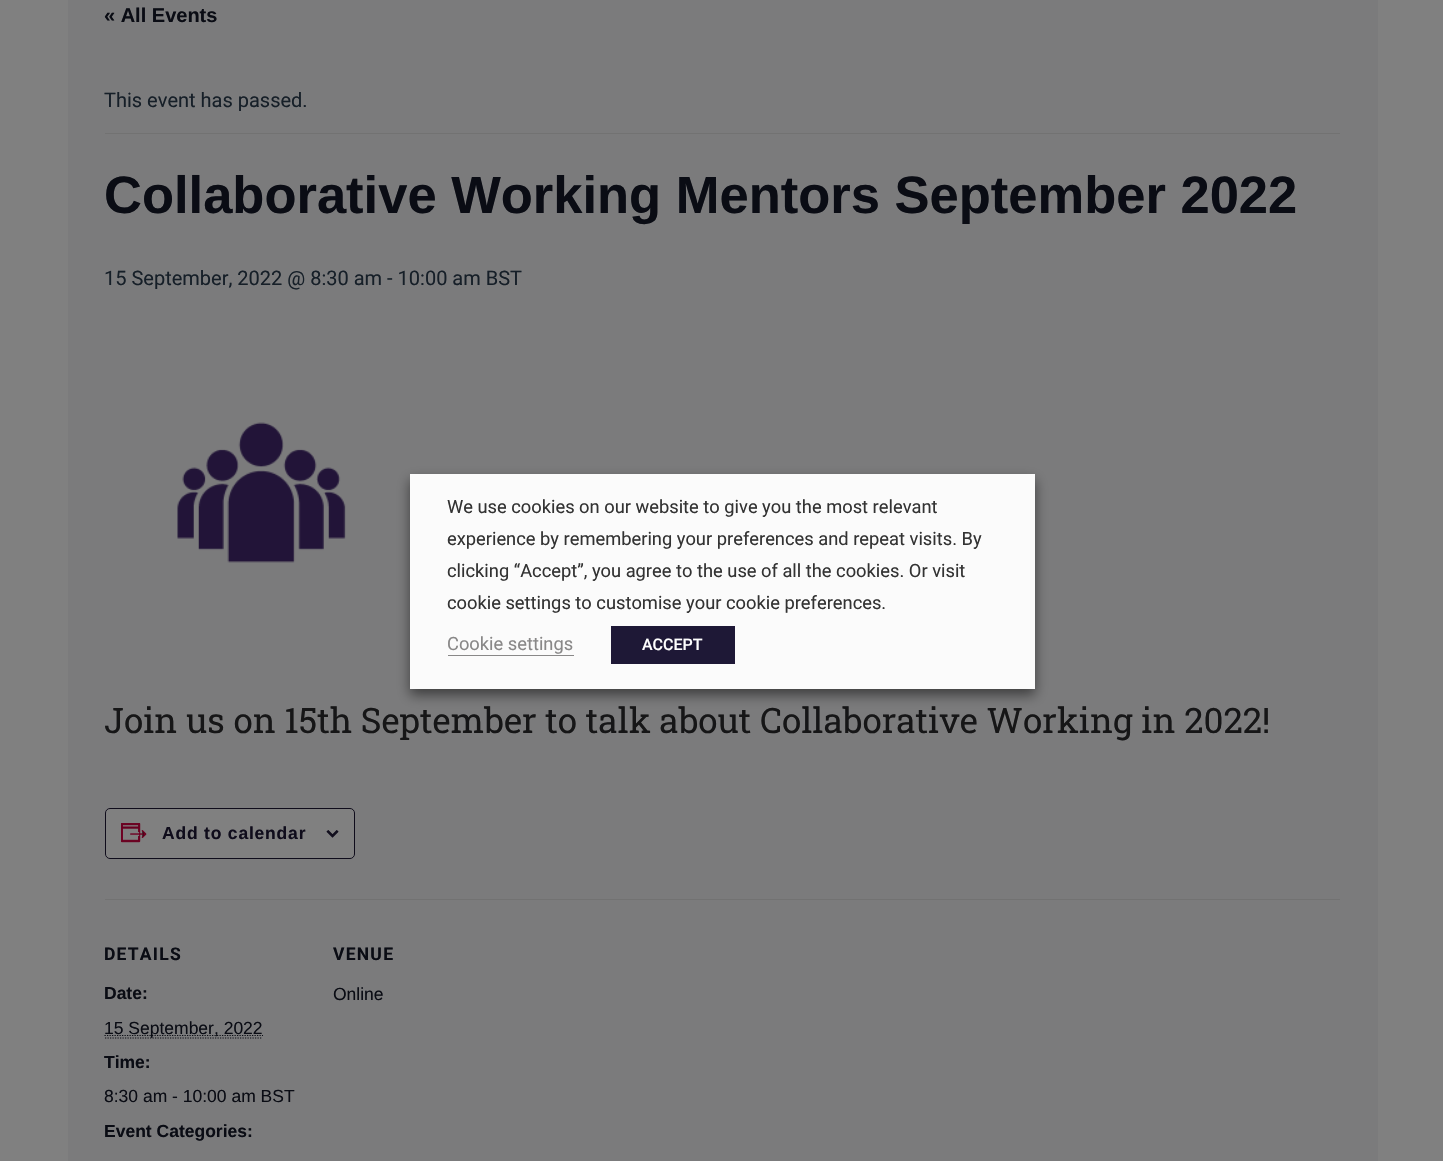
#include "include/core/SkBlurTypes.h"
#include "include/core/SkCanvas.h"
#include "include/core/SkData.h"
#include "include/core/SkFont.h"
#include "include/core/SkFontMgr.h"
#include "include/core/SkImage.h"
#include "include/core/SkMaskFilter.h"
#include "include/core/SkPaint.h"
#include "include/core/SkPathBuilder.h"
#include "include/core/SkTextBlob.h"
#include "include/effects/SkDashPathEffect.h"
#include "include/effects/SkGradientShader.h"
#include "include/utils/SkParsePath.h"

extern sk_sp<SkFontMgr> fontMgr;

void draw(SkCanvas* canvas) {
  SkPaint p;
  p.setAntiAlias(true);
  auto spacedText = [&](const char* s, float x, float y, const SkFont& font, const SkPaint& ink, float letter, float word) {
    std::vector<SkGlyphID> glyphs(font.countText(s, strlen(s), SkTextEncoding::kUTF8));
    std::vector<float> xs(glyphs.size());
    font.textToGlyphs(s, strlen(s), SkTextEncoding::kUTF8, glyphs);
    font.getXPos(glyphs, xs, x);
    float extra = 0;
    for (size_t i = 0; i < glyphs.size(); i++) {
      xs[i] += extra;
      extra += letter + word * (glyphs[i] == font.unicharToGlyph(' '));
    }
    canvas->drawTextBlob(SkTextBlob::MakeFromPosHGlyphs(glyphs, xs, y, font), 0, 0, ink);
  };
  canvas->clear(SkColorSetRGB(128, 128, 128));
  p.setColor(SkColorSetRGB(123, 123, 124));
  canvas->drawRect(SkRect::MakeLTRB(68, 0, 1378, 1161), p);
  p.setColor(SkColorSetRGB(114, 114, 114));
  canvas->drawRect(SkRect::MakeLTRB(105, 133, 1340, 134), p);
  canvas->drawImageRect(SkImages::DeferredFromEncodedData(SkData::MakeFromFileName("images/1.png")), SkRect::MakeLTRB(177, 422, 346, 563), SkSamplingOptions());
  p.setColor(SkColorSetRGB(128, 128, 128));
  canvas->drawRoundRect(SkRect::MakeLTRB(105.5f, 808.5f, 354.5f, 858.5f), 4.5f, 4.5f, p);
  p.setStyle(SkPaint::kStroke_Style);
  p.setStrokeWidth(1);
  p.setColor(SkColorSetRGB(15, 12, 27));
  canvas->drawRoundRect(SkRect::MakeLTRB(105.5f, 808.5f, 354.5f, 858.5f), 4.5f, 4.5f, p);
  canvas->drawImageRect(SkImages::DeferredFromEncodedData(SkData::MakeFromFileName("images/2.png")), SkRect::MakeLTRB(121, 823, 147, 843), SkSamplingOptions());
  canvas->drawImageRect(SkImages::DeferredFromEncodedData(SkData::MakeFromFileName("images/3.png")), SkRect::MakeLTRB(326, 830, 339, 838), SkSamplingOptions());
  p.setStyle(SkPaint::kFill_Style);
  p.setColor(SkColorSetRGB(114, 114, 114));
  canvas->drawRect(SkRect::MakeLTRB(105, 899, 1340, 900), p);
  p.setStyle(SkPaint::kStroke_Style);
  p.setStrokeWidth(1.2f);
  p.setColor(SkColorSetRGB(10, 12, 20));
  p.setPathEffect(SkDashPathEffect::Make({{1.25f, 1.25f}}, 0));
  canvas->drawPath(SkPathBuilder().moveTo(105, 1038).lineTo(262.5f, 1038).detach(), p);
  p.setPathEffect(nullptr);
  p.setPathEffect(SkDashPathEffect::Make({{1.25f, 1.25f}}, 0));
  canvas->drawPath(SkPathBuilder().moveTo(104.5f, 1035.5f).lineTo(263, 1035.5f).detach(), p);
  p.setPathEffect(nullptr);
  canvas->save();
  canvas->clipPath(SkPathBuilder(SkPathFillType::kEvenOdd).moveTo(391, 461).lineTo(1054, 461).lineTo(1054, 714).lineTo(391, 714).close().moveTo(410, 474).lineTo(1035, 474).lineTo(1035, 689).lineTo(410, 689).close().detach(), true);
  p.setStyle(SkPaint::kFill_Style);
  p.setColor(SkColorSetARGB(128, 0, 0, 0));
  p.setMaskFilter(SkMaskFilter::MakeBlur(kNormal_SkBlurStyle, 6));
  canvas->drawRect(SkRect::MakeLTRB(410, 480, 1035, 695), p);
  p.setMaskFilter(nullptr);
  canvas->restore();
  p.setColor(SkColorSetARGB(247, 255, 255, 255));
  canvas->drawRect(SkRect::MakeLTRB(410, 474, 1035, 689), p);
  p.setColor(SkColorSetRGB(137, 136, 136));
  canvas->drawRect(SkRect::MakeLTRB(448, 655, 574, 656), p);
  p.setColor(SkColorSetRGB(30, 24, 54));
  canvas->drawRect(SkRect::MakeLTRB(611, 626, 735, 664), p);
  SkFont font1(fontMgr->matchFamilyStyle("Liberation Sans", SkFontStyle::Bold()), 20);
  font1.setSubpixel(true);
  p.setColor(SkColorSetRGB(10, 12, 20));
  canvas->drawString("« All Events", 104, 22, font1, p);
  SkFont font2(fontMgr->matchFamilyStyle("Roboto", SkFontStyle::Normal()), 20);
  font2.setSubpixel(true);
  p.setColor(SkColorSetRGB(22, 31, 40));
  canvas->drawString("This event has passed.", 104, 107, font2, p);
  SkFont font3(fontMgr->matchFamilyStyle("Liberation Sans", SkFontStyle::Bold()), 52.5f);
  font3.setSubpixel(true);
  p.setColor(SkColorSetRGB(10, 12, 20));
  canvas->drawString("Collaborative Working Mentors September 2022", 104, 213, font3, p);
  p.setColor(SkColorSetRGB(22, 31, 40));
  canvas->drawString("15 September, 2022 @ 8:30 am - 10:00 am BST", 104, 285, font2, p);
  SkFont font4(fontMgr->matchFamilyStyle("Roboto Slab", SkFontStyle::Normal()), 35);
  font4.setSubpixel(true);
  p.setColor(SkColorSetRGB(22, 22, 23));
  canvas->drawString("Join us on 15th September to talk about Collaborative Working in 2022!", 104, 733, font4, p);
  SkFont font5(fontMgr->matchFamilyStyle("Liberation Sans", SkFontStyle::Bold()), 17.5f);
  font5.setSubpixel(true);
  p.setColor(SkColorSetRGB(15, 12, 27));
  spacedText("Add to calendar", 162, 839, font5, p, 0.8f, 0);
  SkFont font6(fontMgr->matchFamilyStyle("Roboto", SkFontStyle::Bold()), 17.5f);
  font6.setSubpixel(true);
  p.setColor(SkColorSetRGB(10, 12, 20));
  spacedText("DETAILS", 104, 960, font6, p, 1.25f, 0);
  canvas->drawString("Date:", 104, 999, font5, p);
  SkFont font7(fontMgr->matchFamilyStyle("Liberation Sans", SkFontStyle::Normal()), 17.5f);
  font7.setSubpixel(true);
  canvas->drawString("15 September, 2022", 104, 1034, font7, p);
  canvas->drawString("Time:", 104, 1068, font5, p);
  canvas->drawString("8:30 am - 10:00 am BST", 104, 1102, font7, p);
  canvas->drawString("Event Categories:", 104, 1137, font5, p);
  spacedText("VENUE", 333, 960, font6, p, 1.25f, 0);
  canvas->drawString("Online", 333, 1000, font7, p);
  SkFont font8(fontMgr->matchFamilyStyle("Roboto", SkFontStyle::Normal()), 18.3f);
  font8.setSubpixel(true);
  p.setColor(SkColorSetRGB(51, 51, 51));
  canvas->drawString("We use cookies on our website to give you the most relevant", 447, 513, font8, p);
  canvas->drawString("experience by remembering your preferences and repeat visits. By", 447, 545, font8, p);
  canvas->drawString("clicking “Accept”, you agree to the use of all the cookies. Or visit", 447, 577, font8, p);
  canvas->drawString("cookie settings to customise your cookie preferences.", 447, 609, font8, p);
  p.setColor(SkColorSetRGB(137, 136, 136));
  canvas->drawString("Cookie settings", 447, 650, font8, p);
  SkFont font9(fontMgr->matchFamilyStyle("Roboto", SkFontStyle(500, SkFontStyle::kNormal_Width, SkFontStyle::kUpright_Slant)), 16);
  font9.setSubpixel(true);
  p.setColor(SK_ColorWHITE);
  canvas->drawString("ACCEPT", 642, 650, font9, p);
}
